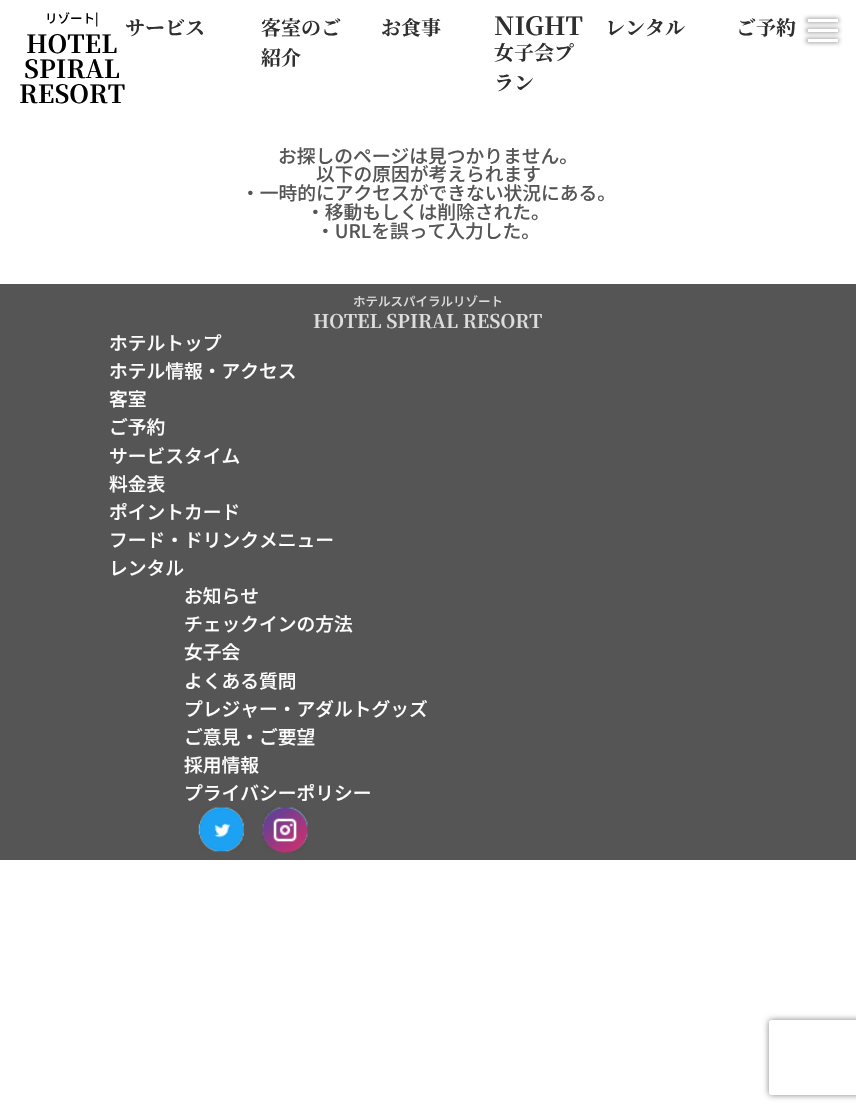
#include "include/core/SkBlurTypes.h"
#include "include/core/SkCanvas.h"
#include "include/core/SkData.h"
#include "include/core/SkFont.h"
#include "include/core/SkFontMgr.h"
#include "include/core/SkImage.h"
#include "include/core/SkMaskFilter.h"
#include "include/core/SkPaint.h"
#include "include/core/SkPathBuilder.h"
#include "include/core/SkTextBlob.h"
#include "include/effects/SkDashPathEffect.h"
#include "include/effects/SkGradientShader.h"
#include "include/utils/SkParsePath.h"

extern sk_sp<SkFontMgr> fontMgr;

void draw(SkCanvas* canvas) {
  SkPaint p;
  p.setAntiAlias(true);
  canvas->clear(SK_ColorWHITE);
  p.setColor(SkColorSetARGB(138, 85, 85, 85));
  p.setMaskFilter(SkMaskFilter::MakeBlur(kNormal_SkBlurStyle, 2));
  canvas->drawRect(SkRect::MakeLTRB(806, 18, 839, 23), p);
  p.setMaskFilter(nullptr);
  p.setColor(SK_ColorWHITE);
  canvas->drawRect(SkRect::MakeLTRB(808, 19, 838, 22), p);
  p.setColor(SkColorSetARGB(138, 85, 85, 85));
  p.setMaskFilter(SkMaskFilter::MakeBlur(kNormal_SkBlurStyle, 2));
  canvas->drawRect(SkRect::MakeLTRB(806, 28, 839, 33), p);
  p.setMaskFilter(nullptr);
  p.setColor(SK_ColorWHITE);
  canvas->drawRect(SkRect::MakeLTRB(808, 29, 838, 32), p);
  p.setColor(SkColorSetARGB(138, 85, 85, 85));
  p.setMaskFilter(SkMaskFilter::MakeBlur(kNormal_SkBlurStyle, 2));
  canvas->drawRect(SkRect::MakeLTRB(806, 38, 839, 43), p);
  p.setMaskFilter(nullptr);
  p.setColor(SK_ColorWHITE);
  canvas->drawRect(SkRect::MakeLTRB(808, 39, 838, 42), p);
  p.setColor(SkColorSetRGB(85, 85, 85));
  canvas->drawRect(SkRect::MakeLTRB(0, 284, 856, 860), p);
  canvas->drawImageRect(SkImages::DeferredFromEncodedData(SkData::MakeFromFileName("images/1.png")), SkRect::MakeLTRB(198, 807, 244, 852), SkSamplingOptions());
  canvas->drawImageRect(SkImages::DeferredFromEncodedData(SkData::MakeFromFileName("images/2.png")), SkRect::MakeLTRB(262, 807, 308, 853), SkSamplingOptions());
  canvas->save();
  canvas->clipPath(SkPathBuilder(SkPathFillType::kEvenOdd).moveTo(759, 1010).lineTo(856, 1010).lineTo(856, 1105).lineTo(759, 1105).close().moveTo(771.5f, 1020).lineTo(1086.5f, 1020).cubicTo(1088, 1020, 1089, 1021, 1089, 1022.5f).lineTo(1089, 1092.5f).cubicTo(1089, 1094, 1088, 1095, 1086.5f, 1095).lineTo(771.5f, 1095).cubicTo(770, 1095, 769, 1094, 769, 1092.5f).lineTo(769, 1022.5f).cubicTo(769, 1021, 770, 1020, 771.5f, 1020).close().detach(), true);
  p.setColor(SkColorSetRGB(128, 128, 128));
  p.setMaskFilter(SkMaskFilter::MakeBlur(kNormal_SkBlurStyle, 3));
  canvas->drawRoundRect(SkRect::MakeLTRB(769, 1020, 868, 1095), 2.5f, 2.5f, p);
  p.setMaskFilter(nullptr);
  canvas->restore();
  SkFont font1(fontMgr->matchFamilyStyle("Noto Sans JP", SkFontStyle(500, SkFontStyle::kNormal_Width, SkFontStyle::kUpright_Slant)), 12.5f);
  font1.setSubpixel(true);
  p.setColor(SK_ColorBLACK);
  canvas->drawString("リゾート|", 45, 23, font1, p);
  SkFont font2(fontMgr->matchFamilyStyle("Noto Serif JP", SkFontStyle::Bold()), 25);
  font2.setSubpixel(true);
  canvas->drawString("HOTEL", 26, 53, font2, p);
  canvas->drawString("SPIRAL", 24, 78, font2, p);
  canvas->drawString("RESORT", 19, 103, font2, p);
  SkFont font3(fontMgr->matchFamilyStyle("Noto Serif JP", SkFontStyle::Bold()), 20);
  font3.setSubpixel(true);
  p.setColor(SkColorSetRGB(47, 47, 47));
  canvas->drawString("サービス", 125, 35, font3, p);
  canvas->drawString("客室のご", 261, 35, font3, p);
  canvas->drawString("紹介", 261, 65, font3, p);
  canvas->drawString("お食事", 381, 35, font3, p);
  canvas->drawString("NIGHT", 494, 35, font2, p);
  canvas->drawString("女子会プ", 494, 60, font3, p);
  canvas->drawString("ラン", 494, 90, font3, p);
  canvas->drawString("レンタル", 605, 35, font3, p);
  canvas->drawString("ご予約", 736, 35, font3, p);
  SkFont font4(fontMgr->matchFamilyStyle("Noto Sans JP", SkFontStyle(500, SkFontStyle::kNormal_Width, SkFontStyle::kUpright_Slant)), 18.75f);
  font4.setSubpixel(true);
  p.setColor(SkColorSetRGB(85, 85, 85));
  canvas->drawString("お探しのページは見つかりません。", 278, 163, font4, p);
  canvas->drawString("以下の原因が考えられます", 316, 181, font4, p);
  canvas->drawString("・一時的にアクセスができない状況にある。", 241, 200, font4, p);
  canvas->drawString("・移動もしくは削除された。", 306, 219, font4, p);
  canvas->drawString("・URLを誤って入力した。", 316, 238, font4, p);
  p.setColor(SkColorSetRGB(221, 221, 221));
  canvas->drawString("ホテルスパイラルリゾート", 353, 306, font1, p);
  SkFont font5(fontMgr->matchFamilyStyle("Noto Serif JP", SkFontStyle::Bold()), 18.75f);
  font5.setSubpixel(true);
  canvas->drawString("HOTEL SPIRAL RESORT", 313, 328, font5, p);
  p.setColor(SK_ColorWHITE);
  canvas->drawString("ホテルトップ", 109, 350, font4, p);
  canvas->drawString("ホテル情報・アクセス", 109, 378, font4, p);
  canvas->drawString("客室", 109, 406, font4, p);
  canvas->drawString("ご予約", 109, 434, font4, p);
  canvas->drawString("サービスタイム", 109, 463, font4, p);
  canvas->drawString("料金表", 109, 491, font4, p);
  canvas->drawString("ポイントカード", 109, 519, font4, p);
  canvas->drawString("フード・ドリンクメニュー", 109, 547, font4, p);
  canvas->drawString("レンタル", 109, 575, font4, p);
  canvas->drawString("お知らせ", 184, 603, font4, p);
  canvas->drawString("チェックインの方法", 184, 631, font4, p);
  canvas->drawString("女子会", 184, 659, font4, p);
  canvas->drawString("よくある質問", 184, 688, font4, p);
  canvas->drawString("プレジャー・アダルトグッズ", 184, 716, font4, p);
  canvas->drawString("ご意見・ご要望", 184, 744, font4, p);
  canvas->drawString("採用情報", 184, 772, font4, p);
  canvas->drawString("プライバシーポリシー", 184, 800, font4, p);
}
